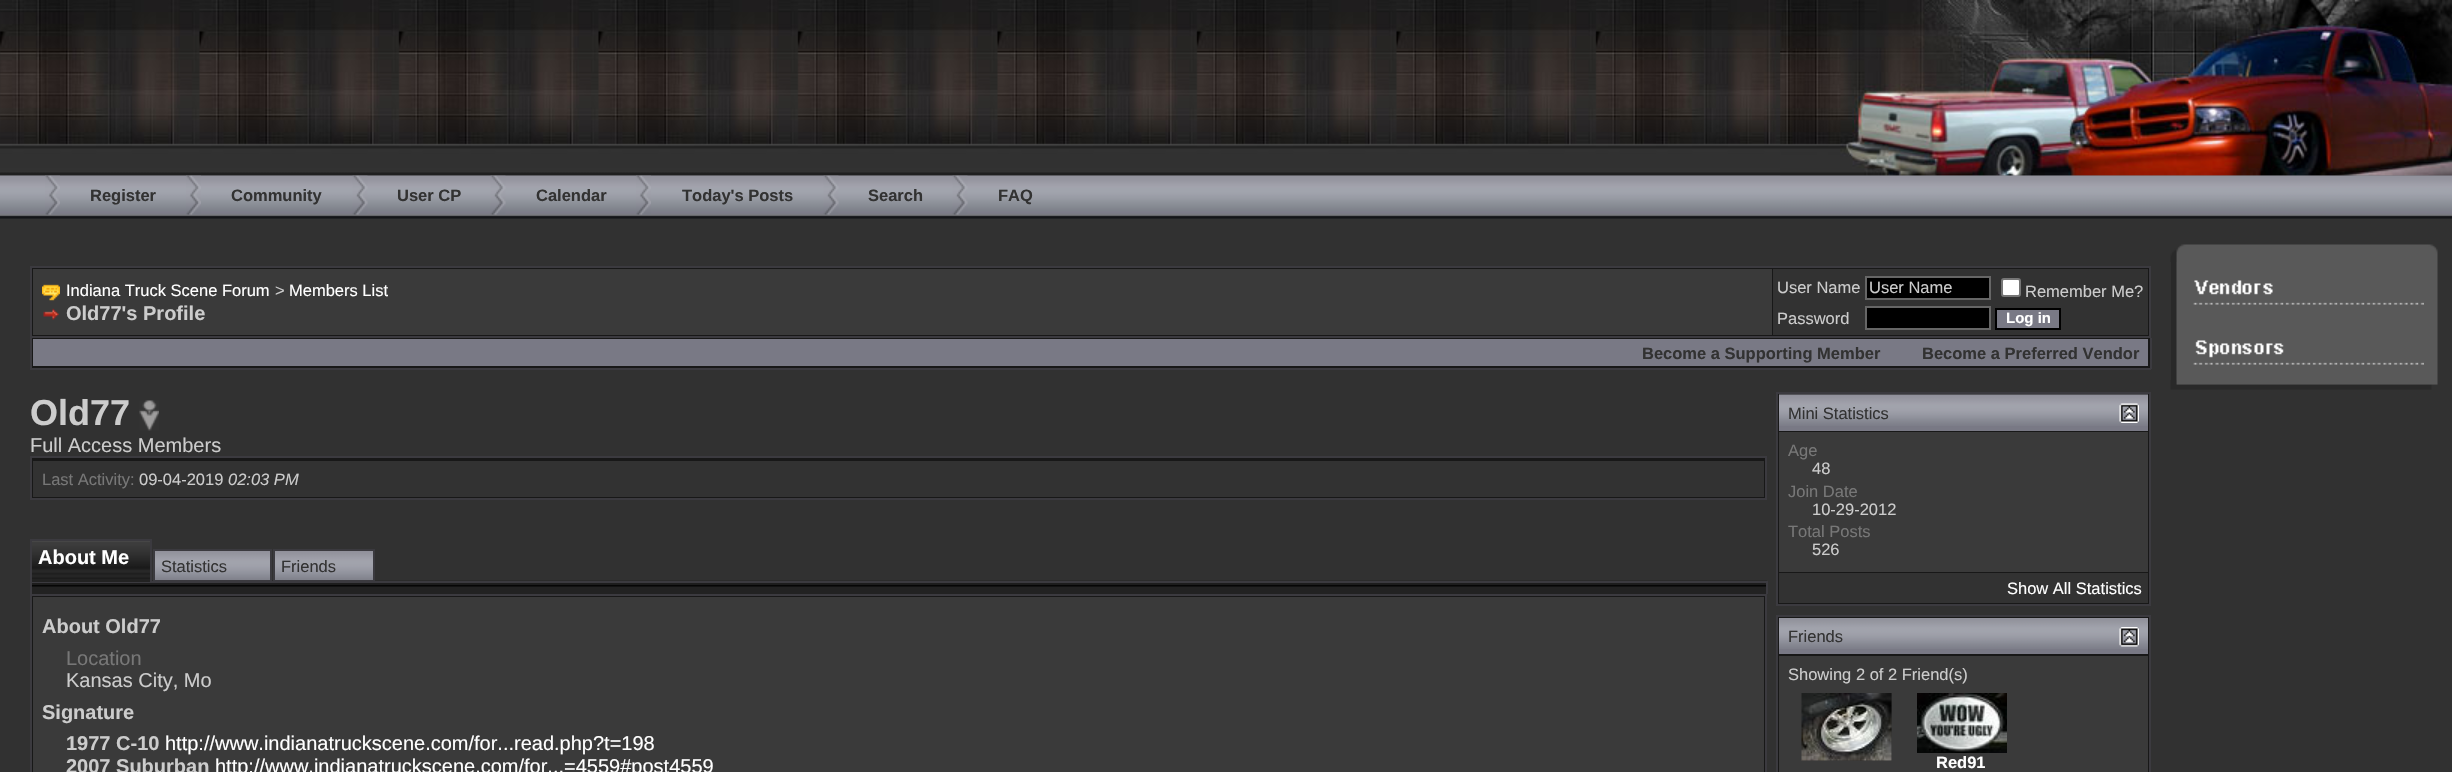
#include "include/core/SkBlurTypes.h"
#include "include/core/SkCanvas.h"
#include "include/core/SkData.h"
#include "include/core/SkFont.h"
#include "include/core/SkFontMgr.h"
#include "include/core/SkImage.h"
#include "include/core/SkMaskFilter.h"
#include "include/core/SkPaint.h"
#include "include/core/SkPathBuilder.h"
#include "include/core/SkTextBlob.h"
#include "include/effects/SkDashPathEffect.h"
#include "include/effects/SkGradientShader.h"
#include "include/utils/SkParsePath.h"

extern sk_sp<SkFontMgr> fontMgr;

void draw(SkCanvas* canvas) {
  SkPaint p;
  p.setAntiAlias(true);
  canvas->clear(SkColorSetRGB(49, 49, 49));
  canvas->drawImageRect(SkImages::DeferredFromEncodedData(SkData::MakeFromFileName("images/1.png")), SkRect::MakeLTRB(0, 0, 2452, 176), SkSamplingOptions());
  canvas->drawImageRect(SkImages::DeferredFromEncodedData(SkData::MakeFromFileName("images/2.png")), SkRect::MakeLTRB(1780, 0, 2452, 176), SkSamplingOptions());
  canvas->drawImageRect(SkImages::DeferredFromEncodedData(SkData::MakeFromFileName("images/3.png")), SkRect::MakeLTRB(1780, 51, 2452, 176), SkSamplingOptions());
  canvas->drawImageRect(SkImages::DeferredFromEncodedData(SkData::MakeFromFileName("images/4.png")), SkRect::MakeLTRB(0, 175, 2452, 219), SkSamplingOptions());
  canvas->drawImageRect(SkImages::DeferredFromEncodedData(SkData::MakeFromFileName("images/5.png")), SkRect::MakeLTRB(45, 175, 60, 215), SkSamplingOptions());
  canvas->drawImageRect(SkImages::DeferredFromEncodedData(SkData::MakeFromFileName("images/6.png")), SkRect::MakeLTRB(186, 175, 201, 215), SkSamplingOptions());
  canvas->drawImageRect(SkImages::DeferredFromEncodedData(SkData::MakeFromFileName("images/7.png")), SkRect::MakeLTRB(352, 175, 368, 215), SkSamplingOptions());
  canvas->drawImageRect(SkImages::DeferredFromEncodedData(SkData::MakeFromFileName("images/8.png")), SkRect::MakeLTRB(490, 175, 506, 215), SkSamplingOptions());
  canvas->drawImageRect(SkImages::DeferredFromEncodedData(SkData::MakeFromFileName("images/9.png")), SkRect::MakeLTRB(636, 175, 651, 215), SkSamplingOptions());
  canvas->drawImageRect(SkImages::DeferredFromEncodedData(SkData::MakeFromFileName("images/8.png")), SkRect::MakeLTRB(823, 175, 839, 215), SkSamplingOptions());
  canvas->drawImageRect(SkImages::DeferredFromEncodedData(SkData::MakeFromFileName("images/8.png")), SkRect::MakeLTRB(952, 175, 968, 215), SkSamplingOptions());
  p.setColor(SkColorSetRGB(24, 24, 24));
  canvas->drawRect(SkRect::MakeLTRB(31, 267, 2150, 337), p);
  p.setStyle(SkPaint::kStroke_Style);
  p.setStrokeWidth(2);
  p.setColor(SkColorSetRGB(59, 58, 63));
  canvas->drawRect(SkRect::MakeLTRB(31, 267, 2150, 337), p);
  p.setStyle(SkPaint::kFill_Style);
  p.setColor(SkColorSetRGB(58, 58, 58));
  canvas->drawRect(SkRect::MakeLTRB(33, 269, 1772, 335), p);
  canvas->drawImageRect(SkImages::DeferredFromEncodedData(SkData::MakeFromFileName("images/10.png")), SkRect::MakeLTRB(42, 284, 60, 301), SkSamplingOptions());
  canvas->drawImageRect(SkImages::DeferredFromEncodedData(SkData::MakeFromFileName("images/11.png")), SkRect::MakeLTRB(43, 308, 59, 320), SkSamplingOptions());
  p.setColor(SkColorSetRGB(50, 50, 50));
  canvas->drawRect(SkRect::MakeLTRB(1773, 269, 2148, 335), p);
  p.setColor(SK_ColorBLACK);
  canvas->drawRect(SkRect::MakeLTRB(1866, 277, 1990, 299), p);
  p.setStyle(SkPaint::kStroke_Style);
  p.setColor(SkColorSetRGB(102, 102, 102));
  canvas->drawRect(SkRect::MakeLTRB(1866, 277, 1990, 299), p);
  p.setStyle(SkPaint::kFill_Style);
  p.setColor(SK_ColorWHITE);
  canvas->drawRoundRect(SkRect::MakeLTRB(2002, 279, 2020, 296), 2, 2, p);
  p.setStyle(SkPaint::kStroke_Style);
  p.setColor(SkColorSetRGB(118, 118, 118));
  canvas->drawRoundRect(SkRect::MakeLTRB(2002, 279, 2020, 296), 2, 2, p);
  p.setStyle(SkPaint::kFill_Style);
  p.setColor(SK_ColorBLACK);
  canvas->drawRect(SkRect::MakeLTRB(1866, 307, 1990, 329), p);
  p.setStyle(SkPaint::kStroke_Style);
  p.setColor(SkColorSetRGB(102, 102, 102));
  canvas->drawRect(SkRect::MakeLTRB(1866, 307, 1990, 329), p);
  p.setStyle(SkPaint::kFill_Style);
  p.setColor(SkColorSetRGB(121, 121, 133));
  canvas->drawRect(SkRect::MakeLTRB(1996, 309, 2060, 329), p);
  p.setStyle(SkPaint::kStroke_Style);
  p.setColor(SK_ColorBLACK);
  canvas->drawRect(SkRect::MakeLTRB(1996, 309, 2060, 329), p);
  p.setStyle(SkPaint::kFill_Style);
  p.setColor(SkColorSetRGB(24, 24, 24));
  canvas->drawRect(SkRect::MakeLTRB(32, 338, 2150, 368), p);
  p.setColor(SkColorSetRGB(59, 58, 63));
  canvas->drawRect(SkRect::MakeLTRB(2150, 338, 2152, 369), p);
  canvas->drawRect(SkRect::MakeLTRB(30, 368, 2151, 370), p);
  canvas->drawRect(SkRect::MakeLTRB(30, 338, 32, 369), p);
  p.setColor(SkColorSetRGB(121, 121, 133));
  canvas->drawRect(SkRect::MakeLTRB(33, 339, 2148, 366), p);
  canvas->drawImageRect(SkImages::DeferredFromEncodedData(SkData::MakeFromFileName("images/12.png")), SkRect::MakeLTRB(139, 400, 159, 431), SkSamplingOptions());
  p.setColor(SkColorSetRGB(24, 24, 24));
  canvas->drawRect(SkRect::MakeLTRB(31, 457, 1766, 499), p);
  p.setStyle(SkPaint::kStroke_Style);
  p.setColor(SkColorSetRGB(59, 58, 63));
  canvas->drawRect(SkRect::MakeLTRB(31, 457, 1766, 499), p);
  p.setStyle(SkPaint::kFill_Style);
  p.setColor(SkColorSetRGB(50, 50, 50));
  canvas->drawRect(SkRect::MakeLTRB(33, 461, 1764, 497), p);
  p.setColor(SkColorSetRGB(34, 34, 34));
  canvas->drawRect(SkRect::MakeLTRB(32, 586, 1766, 594), p);
  canvas->drawImageRect(SkImages::DeferredFromEncodedData(SkData::MakeFromFileName("images/16.png")), SkRect::MakeLTRB(32, 580, 1767, 587), SkSamplingOptions());
  p.setColor(SkColorSetRGB(59, 58, 63));
  canvas->drawRect(SkRect::MakeLTRB(30, 581, 1767, 583), p);
  p.setColor(SkColorSetRGB(34, 34, 34));
  canvas->drawRect(SkRect::MakeLTRB(32, 579, 150, 582), p);
  canvas->drawImageRect(SkImages::DeferredFromEncodedData(SkData::MakeFromFileName("images/13.png")), SkRect::MakeLTRB(32, 541, 150, 579), SkSamplingOptions());
  p.setColor(SkColorSetRGB(59, 58, 63));
  canvas->drawRect(SkRect::MakeLTRB(30, 539, 152, 541), p);
  canvas->drawRect(SkRect::MakeLTRB(150, 539, 152, 582), p);
  canvas->drawRect(SkRect::MakeLTRB(30, 581, 32, 594), p);
  canvas->drawRect(SkRect::MakeLTRB(30, 539, 32, 582), p);
  canvas->drawImageRect(SkImages::DeferredFromEncodedData(SkData::MakeFromFileName("images/14.png")), SkRect::MakeLTRB(155, 551, 270, 580), SkSamplingOptions());
  p.setStyle(SkPaint::kStroke_Style);
  canvas->drawRect(SkRect::MakeLTRB(154, 550, 271, 581), p);
  canvas->drawImageRect(SkImages::DeferredFromEncodedData(SkData::MakeFromFileName("images/15.png")), SkRect::MakeLTRB(275, 551, 373, 580), SkSamplingOptions());
  canvas->drawRect(SkRect::MakeLTRB(274, 550, 374, 581), p);
  p.setStyle(SkPaint::kFill_Style);
  canvas->drawRect(SkRect::MakeLTRB(1766, 581, 1768, 594), p);
  p.setColor(SkColorSetRGB(24, 24, 24));
  canvas->drawRect(SkRect::MakeLTRB(31, 595, 1766, 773), p);
  p.setStyle(SkPaint::kStroke_Style);
  p.setColor(SkColorSetRGB(59, 58, 63));
  canvas->drawRect(SkRect::MakeLTRB(31, 595, 1766, 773), p);
  p.setStyle(SkPaint::kFill_Style);
  p.setColor(SkColorSetRGB(58, 58, 58));
  canvas->drawRect(SkRect::MakeLTRB(33, 597, 1764, 772), p);
  p.setColor(SkColorSetRGB(24, 24, 24));
  canvas->drawRect(SkRect::MakeLTRB(1777, 393, 2150, 605), p);
  p.setStyle(SkPaint::kStroke_Style);
  p.setColor(SkColorSetRGB(59, 58, 63));
  canvas->drawRect(SkRect::MakeLTRB(1777, 393, 2150, 605), p);
  p.setStyle(SkPaint::kFill_Style);
  p.setColor(SkColorSetRGB(121, 121, 133));
  canvas->drawRect(SkRect::MakeLTRB(1779, 426, 2148, 431), p);
  canvas->drawImageRect(SkImages::DeferredFromEncodedData(SkData::MakeFromFileName("images/17.png")), SkRect::MakeLTRB(1779, 394, 2148, 426), SkSamplingOptions());
  canvas->drawImageRect(SkImages::DeferredFromEncodedData(SkData::MakeFromFileName("images/18.png")), SkRect::MakeLTRB(2119, 403, 2139, 423), SkSamplingOptions());
  p.setColor(SkColorSetRGB(58, 58, 58));
  canvas->drawRect(SkRect::MakeLTRB(1779, 432, 2148, 572), p);
  p.setColor(SkColorSetRGB(50, 50, 50));
  canvas->drawRect(SkRect::MakeLTRB(1779, 573, 2148, 603), p);
  p.setColor(SkColorSetRGB(24, 24, 24));
  canvas->drawRect(SkRect::MakeLTRB(1777, 616, 2150, 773), p);
  p.setStyle(SkPaint::kStroke_Style);
  p.setColor(SkColorSetRGB(59, 58, 63));
  canvas->drawRect(SkRect::MakeLTRB(1777, 616, 2150, 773), p);
  p.setStyle(SkPaint::kFill_Style);
  p.setColor(SkColorSetRGB(121, 121, 133));
  canvas->drawRect(SkRect::MakeLTRB(1779, 649, 2148, 654), p);
  canvas->drawImageRect(SkImages::DeferredFromEncodedData(SkData::MakeFromFileName("images/19.png")), SkRect::MakeLTRB(1779, 618, 2148, 649), SkSamplingOptions());
  canvas->drawImageRect(SkImages::DeferredFromEncodedData(SkData::MakeFromFileName("images/20.png")), SkRect::MakeLTRB(2119, 627, 2139, 647), SkSamplingOptions());
  p.setColor(SkColorSetRGB(58, 58, 58));
  canvas->drawRect(SkRect::MakeLTRB(1779, 656, 2148, 772), p);
  p.setColor(SkColorSetRGB(50, 50, 50));
  canvas->drawRect(SkRect::MakeLTRB(1802, 693, 1892, 761), p);
  canvas->drawImageRect(SkImages::DeferredFromEncodedData(SkData::MakeFromFileName("images/21.png")), SkRect::MakeLTRB(1801, 693, 1892, 761), SkSamplingOptions());
  canvas->drawImageRect(SkImages::DeferredFromEncodedData(SkData::MakeFromFileName("images/22.png")), SkRect::MakeLTRB(1917, 693, 2007, 753), SkSamplingOptions());
  canvas->drawImageRect(SkImages::DeferredFromEncodedData(SkData::MakeFromFileName("images/23.png")), SkRect::MakeLTRB(2171, 262, 2438, 380), SkSamplingOptions());
  canvas->drawImageRect(SkImages::DeferredFromEncodedData(SkData::MakeFromFileName("images/24.png")), SkRect::MakeLTRB(2170, 219, 2438, 262), SkSamplingOptions());
  canvas->drawImageRect(SkImages::DeferredFromEncodedData(SkData::MakeFromFileName("images/25.png")), SkRect::MakeLTRB(2193, 280, 2424, 305), SkSamplingOptions());
  canvas->drawImageRect(SkImages::DeferredFromEncodedData(SkData::MakeFromFileName("images/26.png")), SkRect::MakeLTRB(2193, 340, 2424, 365), SkSamplingOptions());
  canvas->drawImageRect(SkImages::DeferredFromEncodedData(SkData::MakeFromFileName("images/27.png")), SkRect::MakeLTRB(2170, 380, 2438, 393), SkSamplingOptions());
  SkFont font1(fontMgr->matchFamilyStyle("Liberation Sans", SkFontStyle::Bold()), 16.5f);
  font1.setSubpixel(true);
  canvas->drawString("Register", 90, 201, font1, p);
  canvas->drawString("Community", 231, 201, font1, p);
  canvas->drawString("User CP", 397, 201, font1, p);
  canvas->drawString("Calendar", 536, 201, font1, p);
  canvas->drawString("Today's Posts", 682, 201, font1, p);
  canvas->drawString("Search", 868, 201, font1, p);
  canvas->drawString("FAQ", 998, 201, font1, p);
  SkFont font2(fontMgr->matchFamilyStyle("Liberation Sans", SkFontStyle::Normal()), 16.5f);
  font2.setSubpixel(true);
  p.setColor(SK_ColorWHITE);
  canvas->drawString("Indiana Truck Scene Forum", 66, 296, font2, p);
  p.setColor(SkColorSetRGB(204, 204, 204));
  canvas->drawString(">", 275, 296, font2, p);
  p.setColor(SK_ColorWHITE);
  canvas->drawString("Members List", 289, 296, font2, p);
  SkFont font3(fontMgr->matchFamilyStyle("Liberation Sans", SkFontStyle::Bold()), 20);
  font3.setSubpixel(true);
  p.setColor(SkColorSetRGB(204, 204, 204));
  canvas->drawString("Old77's Profile", 66, 320, font3, p);
  canvas->drawString("User Name", 1777, 293, font2, p);
  canvas->drawString("User Name", 1869, 293, font2, p);
  canvas->drawString("Remember Me?", 2025, 297, font2, p);
  canvas->drawString("Password", 1777, 324, font2, p);
  SkFont font4(fontMgr->matchFamilyStyle("Liberation Sans", SkFontStyle::Bold()), 15);
  font4.setSubpixel(true);
  p.setColor(SK_ColorWHITE);
  canvas->drawString("Log in", 2006, 323, font4, p);
  p.setColor(SkColorSetRGB(50, 50, 50));
  canvas->drawString("Become a Supporting Member", 1642, 359, font1, p);
  canvas->drawString("Become a Preferred Vendor", 1922, 359, font1, p);
  SkFont font5(fontMgr->matchFamilyStyle("Liberation Sans", SkFontStyle::Bold()), 36);
  font5.setSubpixel(true);
  p.setColor(SkColorSetRGB(204, 204, 204));
  canvas->drawString("Old77", 30, 425, font5, p);
  SkFont font6(fontMgr->matchFamilyStyle("Liberation Sans", SkFontStyle::Normal()), 20);
  font6.setSubpixel(true);
  canvas->drawString("Full Access Members", 30, 452, font6, p);
  p.setColor(SkColorSetRGB(119, 119, 119));
  canvas->drawString("Last Activity:", 42, 485, font2, p);
  p.setColor(SkColorSetRGB(204, 204, 204));
  canvas->drawString("09-04-2019", 139, 485, font2, p);
  SkFont font7(fontMgr->matchFamilyStyle("Liberation Sans", SkFontStyle::Italic()), 16.5f);
  font7.setSubpixel(true);
  canvas->drawString("02:03 PM", 228, 485, font7, p);
  p.setColor(SK_ColorWHITE);
  canvas->drawString("About Me", 38, 564, font3, p);
  p.setColor(SkColorSetRGB(50, 50, 50));
  canvas->drawString("Statistics", 161, 572, font2, p);
  canvas->drawString("Friends", 281, 572, font2, p);
  p.setColor(SkColorSetRGB(204, 204, 204));
  canvas->drawString("About Old77", 42, 633, font3, p);
  p.setColor(SkColorSetRGB(119, 119, 119));
  canvas->drawString("Location", 66, 665, font6, p);
  p.setColor(SkColorSetRGB(204, 204, 204));
  canvas->drawString("Kansas City, Mo", 66, 687, font6, p);
  canvas->drawString("Signature", 42, 719, font3, p);
  canvas->drawString("1977 C-10", 66, 750, font3, p);
  p.setColor(SK_ColorWHITE);
  canvas->drawString("http://www.indianatruckscene.com/for...read.php?t=198", 165, 750, font6, p);
  p.setColor(SkColorSetRGB(204, 204, 204));
  canvas->drawString("2007 Suburban", 66, 773, font3, p);
  p.setColor(SK_ColorWHITE);
  canvas->drawString("http://www.indianatruckscene.com/for...=4559#post4559", 215, 773, font6, p);
  p.setColor(SkColorSetRGB(50, 50, 50));
  canvas->drawString("Mini Statistics", 1788, 419, font2, p);
  p.setColor(SkColorSetRGB(119, 119, 119));
  canvas->drawString("Age", 1788, 456, font2, p);
  p.setColor(SkColorSetRGB(204, 204, 204));
  canvas->drawString("48", 1812, 474, font2, p);
  p.setColor(SkColorSetRGB(119, 119, 119));
  canvas->drawString("Join Date", 1788, 497, font2, p);
  p.setColor(SkColorSetRGB(204, 204, 204));
  canvas->drawString("10-29-2012", 1812, 515, font2, p);
  p.setColor(SkColorSetRGB(119, 119, 119));
  canvas->drawString("Total Posts", 1788, 537, font2, p);
  p.setColor(SkColorSetRGB(204, 204, 204));
  canvas->drawString("526", 1812, 555, font2, p);
  p.setColor(SK_ColorWHITE);
  canvas->drawString("Show All Statistics", 2007, 594, font2, p);
  p.setColor(SkColorSetRGB(50, 50, 50));
  canvas->drawString("Friends", 1788, 642, font2, p);
  p.setColor(SkColorSetRGB(204, 204, 204));
  canvas->drawString("Showing 2 of 2 Friend(s)", 1788, 680, font2, p);
  p.setColor(SK_ColorWHITE);
  canvas->drawString("Red91", 1936, 768, font1, p);
}
